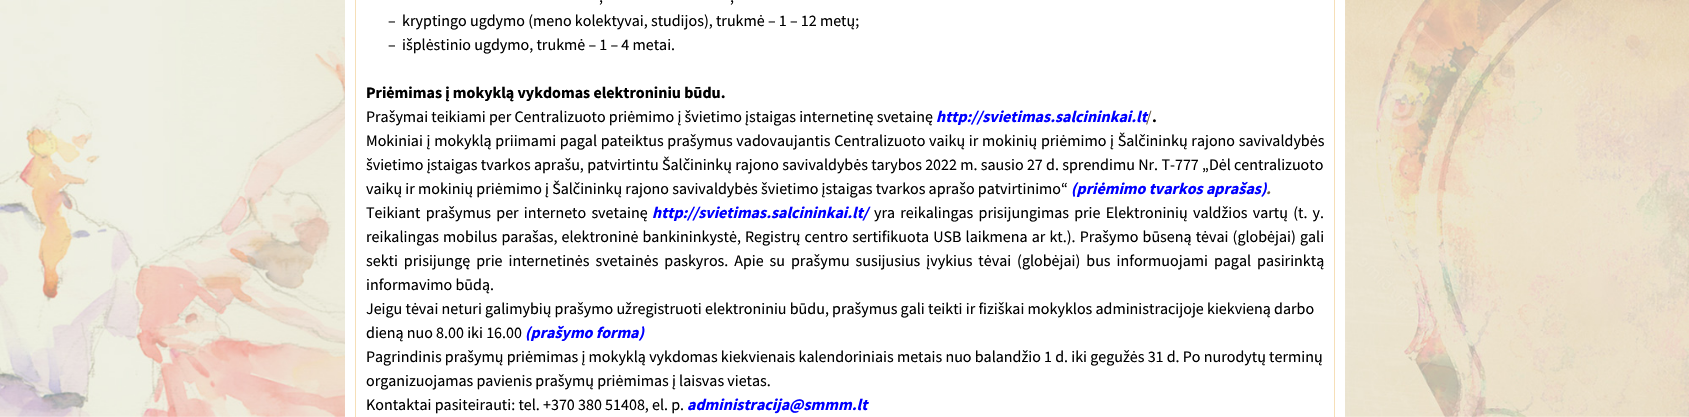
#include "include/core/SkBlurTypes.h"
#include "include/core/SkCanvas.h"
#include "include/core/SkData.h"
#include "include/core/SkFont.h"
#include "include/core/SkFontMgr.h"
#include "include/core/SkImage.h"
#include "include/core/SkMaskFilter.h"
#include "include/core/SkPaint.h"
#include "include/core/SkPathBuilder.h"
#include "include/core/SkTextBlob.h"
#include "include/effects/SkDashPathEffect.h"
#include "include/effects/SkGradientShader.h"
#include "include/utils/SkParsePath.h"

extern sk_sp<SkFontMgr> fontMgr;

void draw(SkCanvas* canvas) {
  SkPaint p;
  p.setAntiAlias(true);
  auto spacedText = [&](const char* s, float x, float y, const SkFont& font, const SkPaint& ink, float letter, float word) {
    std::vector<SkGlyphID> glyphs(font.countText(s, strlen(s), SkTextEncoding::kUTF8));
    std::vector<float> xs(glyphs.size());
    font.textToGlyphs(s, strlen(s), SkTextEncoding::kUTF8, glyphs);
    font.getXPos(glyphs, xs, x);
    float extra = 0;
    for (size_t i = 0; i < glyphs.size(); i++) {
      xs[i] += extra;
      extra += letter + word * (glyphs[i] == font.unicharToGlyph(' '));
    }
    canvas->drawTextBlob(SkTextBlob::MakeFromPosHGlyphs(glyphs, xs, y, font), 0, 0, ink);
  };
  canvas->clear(SK_ColorWHITE);
  canvas->drawImageRect(SkImages::DeferredFromEncodedData(SkData::MakeFromFileName("images/1.png")), SkRect::MakeLTRB(0, 0, 1689, 417), SkSamplingOptions());
  p.setColor(SK_ColorWHITE);
  canvas->drawRect(SkRect::MakeLTRB(345, 0, 1345, 417), p);
  p.setStyle(SkPaint::kStroke_Style);
  p.setStrokeWidth(1);
  p.setColor(SkColorSetRGB(246, 223, 184));
  canvas->drawRect(SkRect::MakeLTRB(355.5f, -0.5f, 1334.5f, 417.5f), p);
  SkFont font1(fontMgr->matchFamilyStyle("Source Sans Pro", SkFontStyle::Normal()), 16);
  font1.setSubpixel(true);
  p.setStyle(SkPaint::kFill_Style);
  p.setColor(SK_ColorBLACK);
  canvas->drawString(",", 599, 2, font1, p);
  canvas->drawString(",", 730, 2, font1, p);
  canvas->drawString("–  kryptingo ugdymo (meno kolektyvai, studijos), trukmė – 1 – 12 metų;", 388, 26, font1, p);
  canvas->drawString("–  išplėstinio ugdymo, trukmė – 1 – 4 metai.", 388, 50, font1, p);
  SkFont font2(fontMgr->matchFamilyStyle("Source Sans Pro", SkFontStyle::Bold()), 16);
  font2.setSubpixel(true);
  canvas->drawString("Priėmimas į mokyklą vykdomas elektroniniu būdu.", 366, 98, font2, p);
  canvas->drawString("Prašymai teikiami per Centralizuoto priėmimo į švietimo įstaigas internetinę svetainę", 366, 122, font1, p);
  SkFont font3(fontMgr->matchFamilyStyle("Source Sans Pro", SkFontStyle::BoldItalic()), 16);
  font3.setSubpixel(true);
  p.setColor(SkColorSetRGB(0, 0, 255));
  canvas->drawString("http://svietimas.salcininkai.lt", 936, 122, font3, p);
  p.setColor(SkColorSetRGB(101, 86, 67));
  canvas->drawString("/", 1146, 122, font1, p);
  p.setColor(SK_ColorBLACK);
  canvas->drawString(".", 1152, 122, font2, p);
  spacedText("Mokiniai į mokyklą priimami pagal pateiktus prašymus vadovaujantis Centralizuoto vaikų ir mokinių priėmimo į Šalčininkų rajono savivaldybės", 366, 146, font1, p, 0, 0.5f);
  spacedText("švietimo įstaigas tvarkos aprašu, patvirtintu Šalčininkų rajono savivaldybės tarybos 2022 m. sausio 27 d. sprendimu Nr. T-777 „Dėl centralizuoto", 366, 170, font1, p, 0, 0.1f);
  canvas->drawString("vaikų ir mokinių priėmimo į Šalčininkų rajono savivaldybės švietimo įstaigas tvarkos aprašo patvirtinimo“", 366, 194, font1, p);
  p.setColor(SkColorSetRGB(0, 0, 255));
  canvas->drawString("(priėmimo tvarkos aprašas)", 1071, 194, font3, p);
  p.setColor(SkColorSetRGB(101, 86, 67));
  canvas->drawString(".", 1266, 194, font3, p);
  p.setColor(SK_ColorBLACK);
  spacedText("Teikiant prašymus per interneto svetainę", 366, 218, font1, p, 0, 2);
  p.setColor(SkColorSetRGB(0, 0, 255));
  canvas->drawString("http://svietimas.salcininkai.lt/", 652, 218, font3, p);
  p.setColor(SK_ColorBLACK);
  spacedText("yra reikalingas prisijungimas prie Elektroninių valdžios vartų (t. y.", 874, 218, font1, p, 0, 2);
  spacedText("reikalingas mobilus parašas, elektroninė bankininkystė, Registrų centro sertifikuota USB laikmena ar kt.). Prašymo būseną tėvai (globėjai) gali", 366, 242, font1, p, 0, 0.9f);
  spacedText("sekti prisijungę prie internetinės svetainės paskyros. Apie su prašymu susijusius įvykius tėvai (globėjai) bus informuojami pagal pasirinktą", 366, 266, font1, p, 0, 2.75f);
  canvas->drawString("informavimo būdą.", 366, 290, font1, p);
  canvas->drawString("Jeigu tėvai neturi galimybių prašymo užregistruoti elektroniniu būdu, prašymus gali teikti ir fiziškai mokyklos administracijoje kiekvieną darbo", 366, 314, font1, p);
  canvas->drawString("dieną nuo 8.00 iki 16.00", 366, 338, font1, p);
  p.setColor(SkColorSetRGB(0, 0, 255));
  canvas->drawString("(prašymo forma)", 525, 338, font3, p);
  p.setColor(SK_ColorBLACK);
  canvas->drawString("Pagrindinis prašymų priėmimas į mokyklą vykdomas kiekvienais kalendoriniais metais nuo balandžio 1 d. iki gegužės 31 d. Po nurodytų terminų", 366, 362, font1, p);
  canvas->drawString("organizuojamas pavienis prašymų priėmimas į laisvas vietas.", 366, 386, font1, p);
  canvas->drawString("Kontaktai pasiteirauti: tel. +370 380 51408, el. p.", 366, 410, font1, p);
  p.setColor(SkColorSetRGB(0, 0, 255));
  canvas->drawString("administracija@smmm.lt", 687, 410, font3, p);
}
